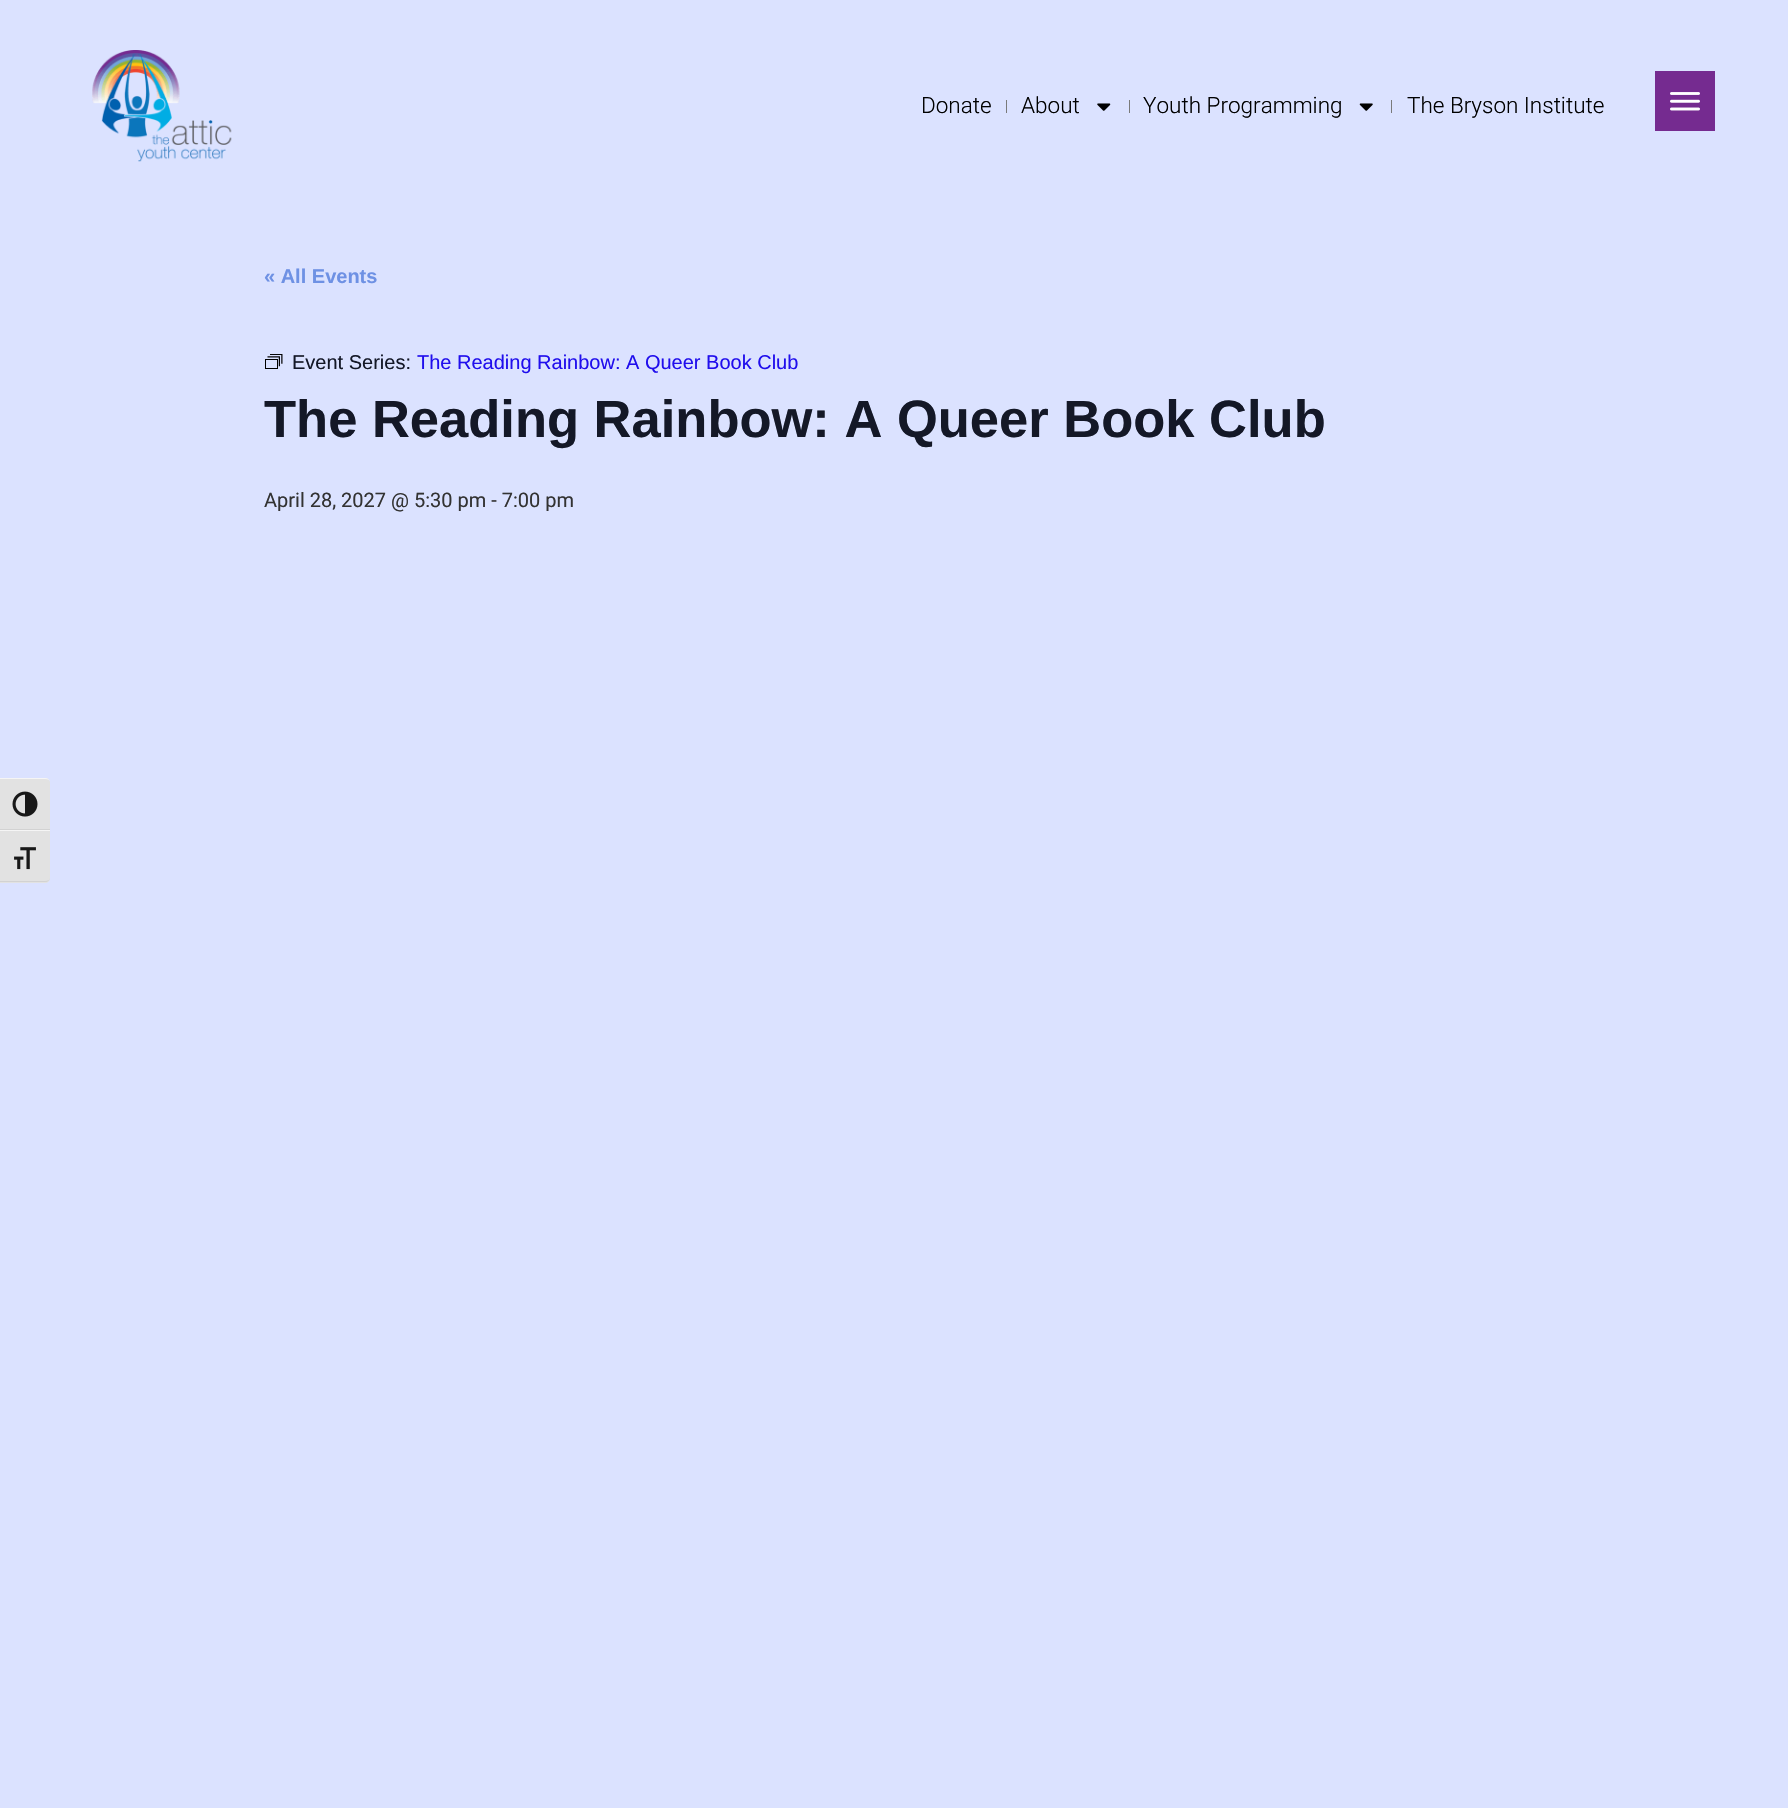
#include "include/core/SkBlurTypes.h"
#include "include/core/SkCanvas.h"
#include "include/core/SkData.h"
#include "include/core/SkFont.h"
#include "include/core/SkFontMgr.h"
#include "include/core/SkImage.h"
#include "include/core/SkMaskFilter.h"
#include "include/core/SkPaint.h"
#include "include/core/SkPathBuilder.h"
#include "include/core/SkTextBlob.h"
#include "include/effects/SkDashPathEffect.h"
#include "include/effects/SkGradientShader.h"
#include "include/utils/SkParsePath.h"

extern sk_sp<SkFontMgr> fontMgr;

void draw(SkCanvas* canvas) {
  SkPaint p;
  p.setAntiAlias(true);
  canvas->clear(SkColorSetRGB(219, 226, 255));
  canvas->drawImageRect(SkImages::DeferredFromEncodedData(SkData::MakeFromFileName("images/1.png")), SkRect::MakeLTRB(92, 50, 232, 162), SkSamplingOptions());
  p.setColor(SkColorSetRGB(122, 122, 122));
  canvas->drawRect(SkRect::MakeLTRB(1006, 100, 1007, 113), p);
  canvas->drawImageRect(SkImages::DeferredFromEncodedData(SkData::MakeFromFileName("images/2.png")), SkRect::MakeLTRB(1097, 103, 1111, 111), SkSamplingOptions());
  canvas->drawRect(SkRect::MakeLTRB(1129, 100, 1130, 113), p);
  canvas->drawImageRect(SkImages::DeferredFromEncodedData(SkData::MakeFromFileName("images/3.png")), SkRect::MakeLTRB(1359, 103, 1373, 111), SkSamplingOptions());
  canvas->drawRect(SkRect::MakeLTRB(1391, 100, 1392, 113), p);
  p.setColor(SkColorSetRGB(117, 43, 144));
  canvas->drawRect(SkRect::MakeLTRB(1655, 71, 1715, 131), p);
  canvas->drawImageRect(SkImages::DeferredFromEncodedData(SkData::MakeFromFileName("images/4.png")), SkRect::MakeLTRB(1670, 92, 1700, 111), SkSamplingOptions());
  canvas->drawImageRect(SkImages::DeferredFromEncodedData(SkData::MakeFromFileName("images/5.png")), SkRect::MakeLTRB(265, 354, 283, 369), SkSamplingOptions());
  p.setColor(SkColorSetRGB(226, 226, 226));
  canvas->drawPath(SkPathBuilder().moveTo(0, 778).lineTo(45, 778).cubicTo(48, 778, 50, 780, 50, 783).lineTo(50, 830).lineTo(0, 830).close().detach(), p);
  p.setColor(SkColorSetRGB(245, 245, 245));
  canvas->drawPath(SkPathBuilder().moveTo(0, 779).lineTo(45, 779).cubicTo(48, 779, 50, 780, 50, 782).cubicTo(50, 780, 48, 778, 45, 778).lineTo(0, 778).close().detach(), p);
  p.setColor(SkColorSetRGB(210, 210, 210));
  canvas->drawRect(SkRect::MakeLTRB(0, 829, 50, 830), p);
  canvas->drawImageRect(SkImages::DeferredFromEncodedData(SkData::MakeFromFileName("images/6.png")), SkRect::MakeLTRB(12, 791, 38, 817), SkSamplingOptions());
  p.setColor(SkColorSetRGB(226, 226, 226));
  canvas->drawPath(SkPathBuilder().moveTo(0, 830).lineTo(50, 830).lineTo(50, 878).cubicTo(50, 881, 48, 883, 45, 883).lineTo(0, 883).close().detach(), p);
  p.setColor(SkColorSetRGB(245, 245, 245));
  canvas->drawRect(SkRect::MakeLTRB(0, 830, 50, 831), p);
  p.setColor(SkColorSetRGB(210, 210, 210));
  canvas->drawPath(SkPathBuilder().moveTo(0, 881).lineTo(0, 882).lineTo(45, 882).cubicTo(48, 882, 50, 880, 50, 878).cubicTo(50, 880, 48, 881, 45, 881).close().detach(), p);
  canvas->drawImageRect(SkImages::DeferredFromEncodedData(SkData::MakeFromFileName("images/7.png")), SkRect::MakeLTRB(14, 847, 36, 870), SkSamplingOptions());
  SkFont font1(fontMgr->matchFamilyStyle("Roboto", SkFontStyle(300, SkFontStyle::kNormal_Width, SkFontStyle::kUpright_Slant)), 22.5f);
  font1.setSubpixel(true);
  p.setColor(SK_ColorBLACK);
  canvas->drawString("Donate", 921, 113, font1, p);
  canvas->drawString("About", 1021, 113, font1, p);
  canvas->drawString("Youth Programming", 1143, 113, font1, p);
  canvas->drawString("The Bryson Institute", 1407, 113, font1, p);
  SkFont font2(fontMgr->matchFamilyStyle("Liberation Sans", SkFontStyle::Bold()), 20);
  font2.setSubpixel(true);
  p.setColor(SkColorSetRGB(110, 145, 228));
  canvas->drawString("« All Events", 264, 283, font2, p);
  SkFont font3(fontMgr->matchFamilyStyle("Liberation Sans", SkFontStyle::Normal()), 20);
  font3.setSubpixel(true);
  p.setColor(SkColorSetRGB(20, 24, 39));
  canvas->drawString("Event Series:", 292, 369, font3, p);
  p.setColor(SkColorSetRGB(32, 14, 237));
  canvas->drawString("The Reading Rainbow: A Queer Book Club", 417, 369, font3, p);
  SkFont font4(fontMgr->matchFamilyStyle("Liberation Sans", SkFontStyle::Bold()), 52.5f);
  font4.setSubpixel(true);
  p.setColor(SkColorSetRGB(20, 24, 39));
  canvas->drawString("The Reading Rainbow: A Queer Book Club", 264, 437, font4, p);
  SkFont font5(fontMgr->matchFamilyStyle("Roboto", SkFontStyle::Normal()), 20);
  font5.setSubpixel(true);
  p.setColor(SkColorSetRGB(51, 51, 51));
  canvas->drawString("April 28, 2027 @ 5:30 pm - 7:00 pm", 264, 507, font5, p);
}
